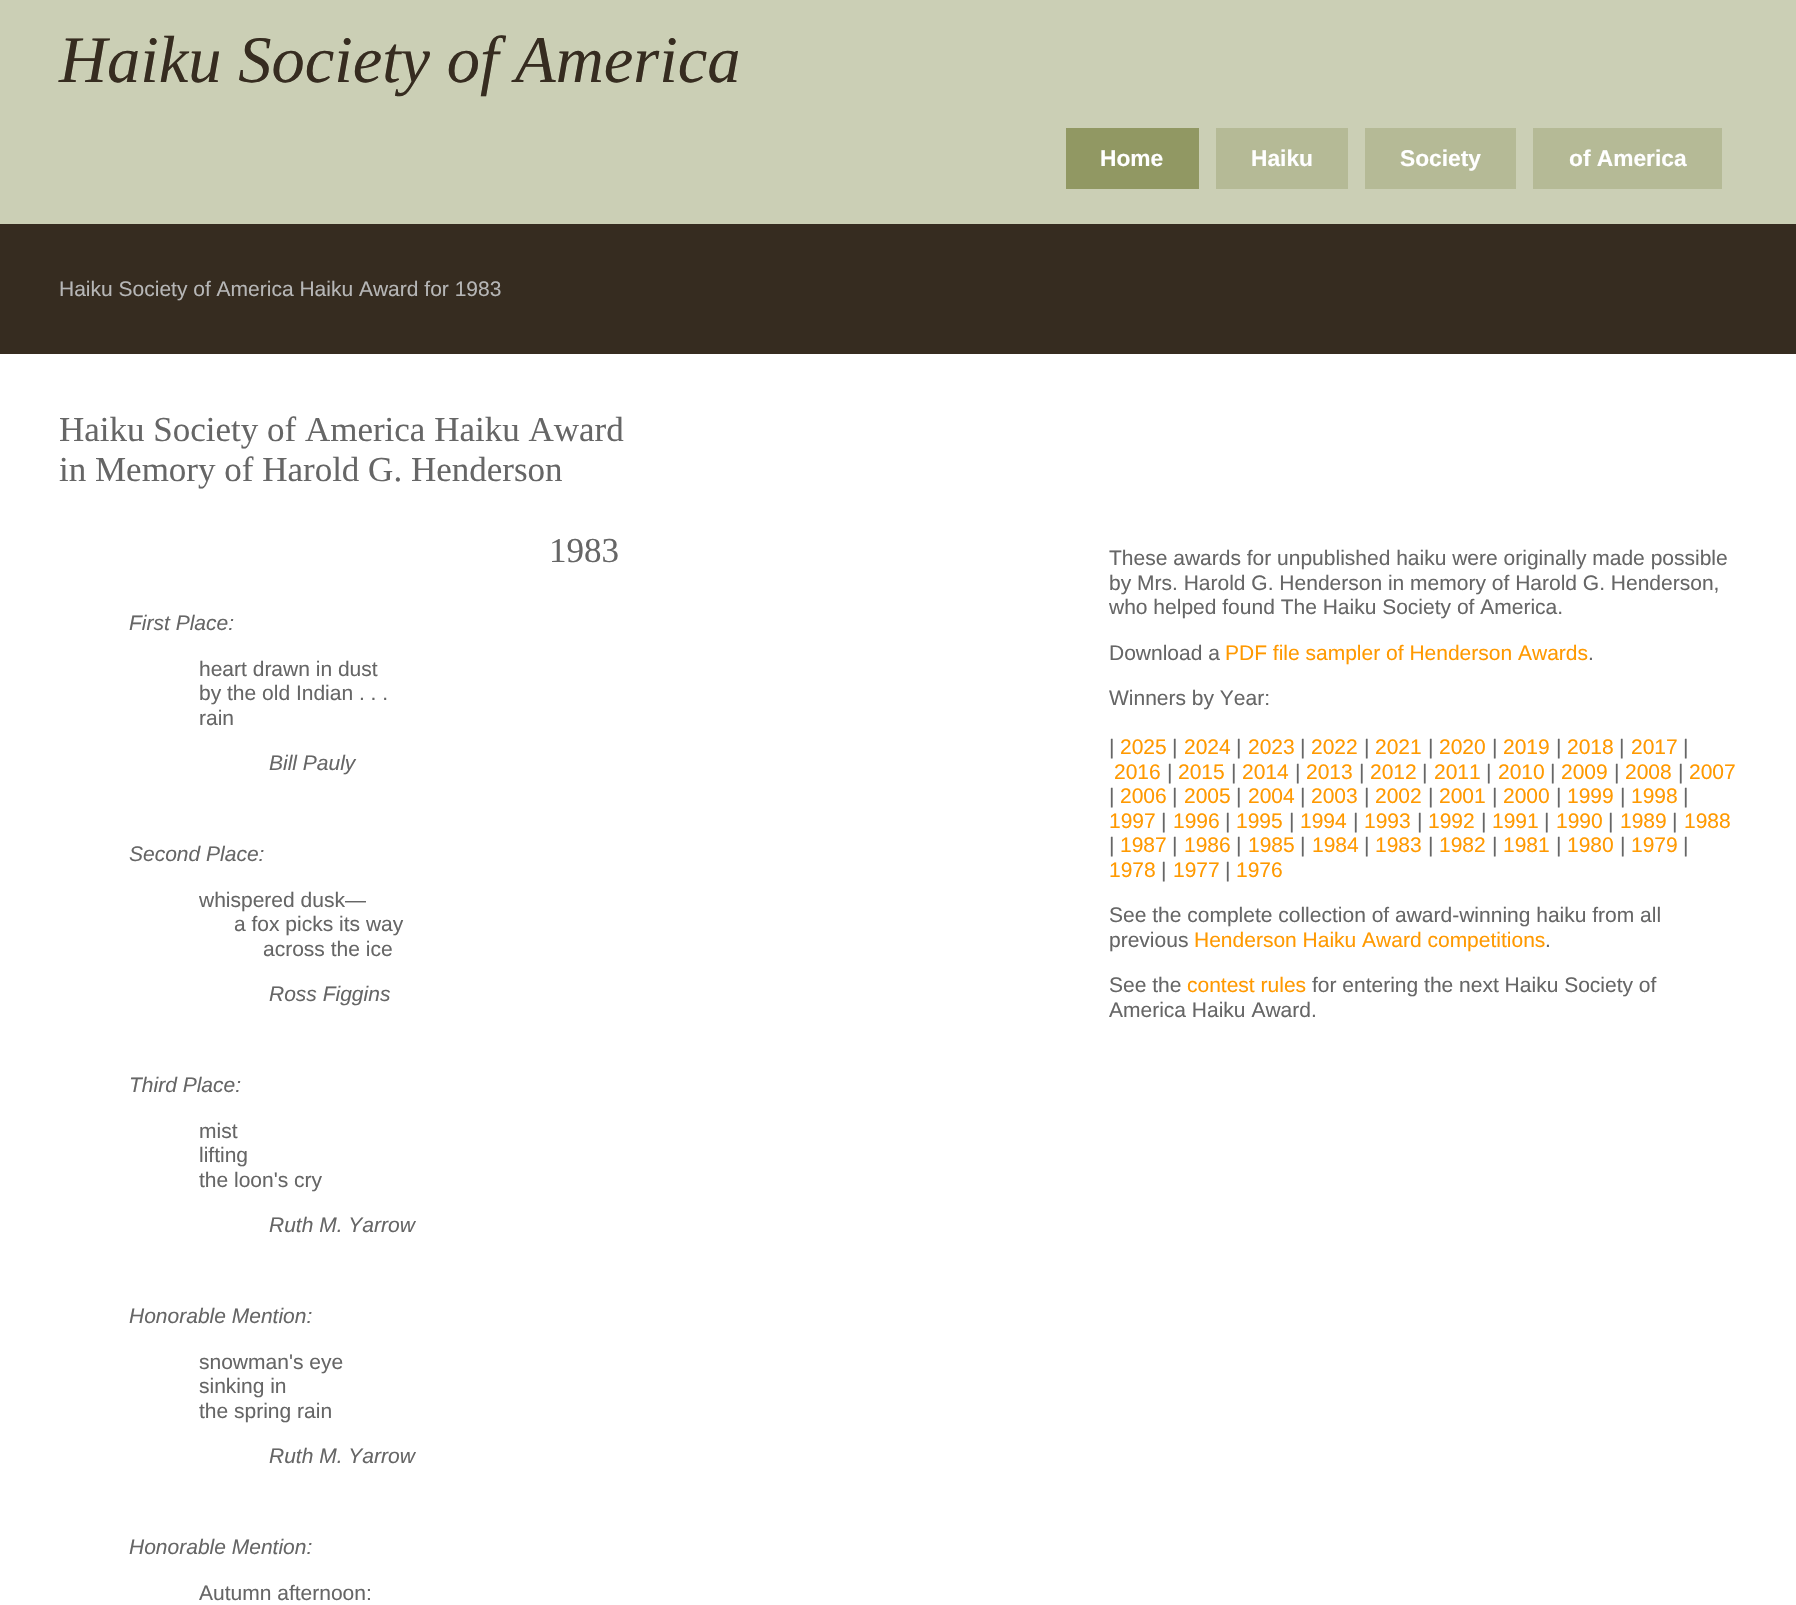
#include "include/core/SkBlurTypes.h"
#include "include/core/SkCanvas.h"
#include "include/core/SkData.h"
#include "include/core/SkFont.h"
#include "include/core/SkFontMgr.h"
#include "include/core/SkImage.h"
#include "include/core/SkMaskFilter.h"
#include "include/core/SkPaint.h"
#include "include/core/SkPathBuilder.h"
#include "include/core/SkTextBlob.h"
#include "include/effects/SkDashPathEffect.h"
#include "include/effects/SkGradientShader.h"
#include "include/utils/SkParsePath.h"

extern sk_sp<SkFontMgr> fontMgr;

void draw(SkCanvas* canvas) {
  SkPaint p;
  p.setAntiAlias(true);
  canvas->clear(SkColorSetRGB(203, 207, 181));
  p.setColor(SkColorSetRGB(145, 152, 99));
  canvas->drawRect(SkRect::MakeLTRB(1066, 128, 1199, 189), p);
  p.setColor(SkColorSetRGB(181, 186, 150));
  canvas->drawRect(SkRect::MakeLTRB(1216, 128, 1348, 189), p);
  canvas->drawRect(SkRect::MakeLTRB(1365, 128, 1516, 189), p);
  canvas->drawRect(SkRect::MakeLTRB(1533, 128, 1722, 189), p);
  p.setColor(SkColorSetRGB(54, 44, 32));
  canvas->drawRect(SkRect::MakeLTRB(0, 224, 1796, 354), p);
  p.setColor(SK_ColorWHITE);
  canvas->drawRect(SkRect::MakeLTRB(0, 354, 1796, 1605), p);
  SkFont font1(fontMgr->matchFamilyStyle("Liberation Serif", SkFontStyle::Italic()), 66.5f);
  font1.setSubpixel(true);
  p.setColor(SkColorSetRGB(54, 44, 32));
  canvas->drawString("Haiku Society of America", 59, 82, font1, p);
  SkFont font2(fontMgr->matchFamilyStyle("Liberation Sans", SkFontStyle::Bold()), 22.75f);
  font2.setSubpixel(true);
  p.setColor(SK_ColorWHITE);
  canvas->drawString("Home", 1100, 166, font2, p);
  canvas->drawString("Haiku", 1251, 166, font2, p);
  canvas->drawString("Society", 1400, 166, font2, p);
  canvas->drawString("of America", 1569, 166, font2, p);
  SkFont font3(fontMgr->matchFamilyStyle("Liberation Sans", SkFontStyle::Normal()), 21);
  font3.setSubpixel(true);
  p.setColor(SkColorSetRGB(182, 182, 182));
  canvas->drawString("Haiku Society of America Haiku Award for 1983", 59, 296, font3, p);
  SkFont font4(fontMgr->matchFamilyStyle("Liberation Serif", SkFontStyle::Normal()), 35);
  font4.setSubpixel(true);
  p.setColor(SkColorSetRGB(102, 102, 102));
  canvas->drawString("Haiku Society of America Haiku Award", 59, 441, font4, p);
  canvas->drawString("in Memory of Harold G. Henderson", 59, 481, font4, p);
  canvas->drawString("1983", 549, 562, font4, p);
  SkFont font5(fontMgr->matchFamilyStyle("Liberation Sans", SkFontStyle::Italic()), 21);
  font5.setSubpixel(true);
  canvas->drawString("First Place:", 129, 630, font5, p);
  canvas->drawString("heart drawn in dust", 199, 676, font3, p);
  canvas->drawString("by the old Indian . . .", 199, 700, font3, p);
  canvas->drawString("rain", 199, 725, font3, p);
  canvas->drawString("Bill Pauly", 269, 770, font5, p);
  canvas->drawString("Second Place:", 129, 861, font5, p);
  canvas->drawString("whispered dusk—", 199, 907, font3, p);
  canvas->drawString("a fox picks its way", 234, 931, font3, p);
  canvas->drawString("across the ice", 263, 956, font3, p);
  canvas->drawString("Ross Figgins", 269, 1001, font5, p);
  canvas->drawString("Third Place:", 129, 1092, font5, p);
  canvas->drawString("mist", 199, 1138, font3, p);
  canvas->drawString("lifting", 199, 1162, font3, p);
  canvas->drawString("the loon's cry", 199, 1187, font3, p);
  canvas->drawString("Ruth M. Yarrow", 269, 1232, font5, p);
  canvas->drawString("Honorable Mention:", 129, 1323, font5, p);
  canvas->drawString("snowman's eye", 199, 1369, font3, p);
  canvas->drawString("sinking in", 199, 1393, font3, p);
  canvas->drawString("the spring rain", 199, 1418, font3, p);
  canvas->drawString("Ruth M. Yarrow", 269, 1463, font5, p);
  canvas->drawString("Honorable Mention:", 129, 1554, font5, p);
  canvas->drawString("Autumn afternoon:", 199, 1600, font3, p);
  canvas->drawString("These awards for unpublished haiku were originally made possible", 1109, 565, font3, p);
  canvas->drawString("by Mrs. Harold G. Henderson in memory of Harold G. Henderson,", 1109, 590, font3, p);
  canvas->drawString("who helped found The Haiku Society of America.", 1109, 614, font3, p);
  canvas->drawString("Download a", 1109, 660, font3, p);
  p.setColor(SkColorSetRGB(255, 153, 0));
  canvas->drawString("PDF file sampler of Henderson Awards", 1225, 660, font3, p);
  p.setColor(SkColorSetRGB(102, 102, 102));
  canvas->drawString(".", 1588, 660, font3, p);
  canvas->drawString("Winners by Year:", 1109, 705, font3, p);
  canvas->drawString("|", 1109, 754, font3, p);
  p.setColor(SkColorSetRGB(255, 153, 0));
  canvas->drawString("2025", 1120, 754, font3, p);
  p.setColor(SkColorSetRGB(102, 102, 102));
  canvas->drawString("|", 1172, 754, font3, p);
  p.setColor(SkColorSetRGB(255, 153, 0));
  canvas->drawString("2024", 1184, 754, font3, p);
  p.setColor(SkColorSetRGB(102, 102, 102));
  canvas->drawString("|", 1236, 754, font3, p);
  p.setColor(SkColorSetRGB(255, 153, 0));
  canvas->drawString("2023", 1248, 754, font3, p);
  p.setColor(SkColorSetRGB(102, 102, 102));
  canvas->drawString("|", 1300, 754, font3, p);
  p.setColor(SkColorSetRGB(255, 153, 0));
  canvas->drawString("2022", 1311, 754, font3, p);
  p.setColor(SkColorSetRGB(102, 102, 102));
  canvas->drawString("|", 1364, 754, font3, p);
  p.setColor(SkColorSetRGB(255, 153, 0));
  canvas->drawString("2021", 1375, 754, font3, p);
  p.setColor(SkColorSetRGB(102, 102, 102));
  canvas->drawString("|", 1428, 754, font3, p);
  p.setColor(SkColorSetRGB(255, 153, 0));
  canvas->drawString("2020", 1439, 754, font3, p);
  p.setColor(SkColorSetRGB(102, 102, 102));
  canvas->drawString("|", 1492, 754, font3, p);
  p.setColor(SkColorSetRGB(255, 153, 0));
  canvas->drawString("2019", 1503, 754, font3, p);
  p.setColor(SkColorSetRGB(102, 102, 102));
  canvas->drawString("|", 1556, 754, font3, p);
  p.setColor(SkColorSetRGB(255, 153, 0));
  canvas->drawString("2018", 1567, 754, font3, p);
  p.setColor(SkColorSetRGB(102, 102, 102));
  canvas->drawString("|", 1619, 754, font3, p);
  p.setColor(SkColorSetRGB(255, 153, 0));
  canvas->drawString("2017", 1631, 754, font3, p);
  p.setColor(SkColorSetRGB(102, 102, 102));
  canvas->drawString("|", 1683, 754, font3, p);
  p.setColor(SkColorSetRGB(255, 153, 0));
  canvas->drawString("2016", 1114, 779, font3, p);
  p.setColor(SkColorSetRGB(102, 102, 102));
  canvas->drawString("|", 1167, 779, font3, p);
  p.setColor(SkColorSetRGB(255, 153, 0));
  canvas->drawString("2015", 1178, 779, font3, p);
  p.setColor(SkColorSetRGB(102, 102, 102));
  canvas->drawString("|", 1231, 779, font3, p);
  p.setColor(SkColorSetRGB(255, 153, 0));
  canvas->drawString("2014", 1242, 779, font3, p);
  p.setColor(SkColorSetRGB(102, 102, 102));
  canvas->drawString("|", 1295, 779, font3, p);
  p.setColor(SkColorSetRGB(255, 153, 0));
  canvas->drawString("2013", 1306, 779, font3, p);
  p.setColor(SkColorSetRGB(102, 102, 102));
  canvas->drawString("|", 1359, 779, font3, p);
  p.setColor(SkColorSetRGB(255, 153, 0));
  canvas->drawString("2012", 1370, 779, font3, p);
  p.setColor(SkColorSetRGB(102, 102, 102));
  canvas->drawString("|", 1422, 779, font3, p);
  p.setColor(SkColorSetRGB(255, 153, 0));
  canvas->drawString("2011", 1434, 779, font3, p);
  p.setColor(SkColorSetRGB(102, 102, 102));
  canvas->drawString("|", 1486, 779, font3, p);
  p.setColor(SkColorSetRGB(255, 153, 0));
  canvas->drawString("2010", 1498, 779, font3, p);
  p.setColor(SkColorSetRGB(102, 102, 102));
  canvas->drawString("|", 1550, 779, font3, p);
  p.setColor(SkColorSetRGB(255, 153, 0));
  canvas->drawString("2009", 1561, 779, font3, p);
  p.setColor(SkColorSetRGB(102, 102, 102));
  canvas->drawString("|", 1614, 779, font3, p);
  p.setColor(SkColorSetRGB(255, 153, 0));
  canvas->drawString("2008", 1625, 779, font3, p);
  p.setColor(SkColorSetRGB(102, 102, 102));
  canvas->drawString("|", 1678, 779, font3, p);
  p.setColor(SkColorSetRGB(255, 153, 0));
  canvas->drawString("2007", 1689, 779, font3, p);
  p.setColor(SkColorSetRGB(102, 102, 102));
  canvas->drawString("|", 1109, 803, font3, p);
  p.setColor(SkColorSetRGB(255, 153, 0));
  canvas->drawString("2006", 1120, 803, font3, p);
  p.setColor(SkColorSetRGB(102, 102, 102));
  canvas->drawString("|", 1172, 803, font3, p);
  p.setColor(SkColorSetRGB(255, 153, 0));
  canvas->drawString("2005", 1184, 803, font3, p);
  p.setColor(SkColorSetRGB(102, 102, 102));
  canvas->drawString("|", 1236, 803, font3, p);
  p.setColor(SkColorSetRGB(255, 153, 0));
  canvas->drawString("2004", 1248, 803, font3, p);
  p.setColor(SkColorSetRGB(102, 102, 102));
  canvas->drawString("|", 1300, 803, font3, p);
  p.setColor(SkColorSetRGB(255, 153, 0));
  canvas->drawString("2003", 1311, 803, font3, p);
  p.setColor(SkColorSetRGB(102, 102, 102));
  canvas->drawString("|", 1364, 803, font3, p);
  p.setColor(SkColorSetRGB(255, 153, 0));
  canvas->drawString("2002", 1375, 803, font3, p);
  p.setColor(SkColorSetRGB(102, 102, 102));
  canvas->drawString("|", 1428, 803, font3, p);
  p.setColor(SkColorSetRGB(255, 153, 0));
  canvas->drawString("2001", 1439, 803, font3, p);
  p.setColor(SkColorSetRGB(102, 102, 102));
  canvas->drawString("|", 1492, 803, font3, p);
  p.setColor(SkColorSetRGB(255, 153, 0));
  canvas->drawString("2000", 1503, 803, font3, p);
  p.setColor(SkColorSetRGB(102, 102, 102));
  canvas->drawString("|", 1556, 803, font3, p);
  p.setColor(SkColorSetRGB(255, 153, 0));
  canvas->drawString("1999", 1567, 803, font3, p);
  p.setColor(SkColorSetRGB(102, 102, 102));
  canvas->drawString("|", 1620, 803, font3, p);
  p.setColor(SkColorSetRGB(255, 153, 0));
  canvas->drawString("1998", 1631, 803, font3, p);
  p.setColor(SkColorSetRGB(102, 102, 102));
  canvas->drawString("|", 1683, 803, font3, p);
  p.setColor(SkColorSetRGB(255, 153, 0));
  canvas->drawString("1997", 1109, 828, font3, p);
  p.setColor(SkColorSetRGB(102, 102, 102));
  canvas->drawString("|", 1161, 828, font3, p);
  p.setColor(SkColorSetRGB(255, 153, 0));
  canvas->drawString("1996", 1173, 828, font3, p);
  p.setColor(SkColorSetRGB(102, 102, 102));
  canvas->drawString("|", 1225, 828, font3, p);
  p.setColor(SkColorSetRGB(255, 153, 0));
  canvas->drawString("1995", 1236, 828, font3, p);
  p.setColor(SkColorSetRGB(102, 102, 102));
  canvas->drawString("|", 1289, 828, font3, p);
  p.setColor(SkColorSetRGB(255, 153, 0));
  canvas->drawString("1994", 1300, 828, font3, p);
  p.setColor(SkColorSetRGB(102, 102, 102));
  canvas->drawString("|", 1353, 828, font3, p);
  p.setColor(SkColorSetRGB(255, 153, 0));
  canvas->drawString("1993", 1364, 828, font3, p);
  p.setColor(SkColorSetRGB(102, 102, 102));
  canvas->drawString("|", 1417, 828, font3, p);
  p.setColor(SkColorSetRGB(255, 153, 0));
  canvas->drawString("1992", 1428, 828, font3, p);
  p.setColor(SkColorSetRGB(102, 102, 102));
  canvas->drawString("|", 1481, 828, font3, p);
  p.setColor(SkColorSetRGB(255, 153, 0));
  canvas->drawString("1991", 1492, 828, font3, p);
  p.setColor(SkColorSetRGB(102, 102, 102));
  canvas->drawString("|", 1544, 828, font3, p);
  p.setColor(SkColorSetRGB(255, 153, 0));
  canvas->drawString("1990", 1556, 828, font3, p);
  p.setColor(SkColorSetRGB(102, 102, 102));
  canvas->drawString("|", 1608, 828, font3, p);
  p.setColor(SkColorSetRGB(255, 153, 0));
  canvas->drawString("1989", 1620, 828, font3, p);
  p.setColor(SkColorSetRGB(102, 102, 102));
  canvas->drawString("|", 1672, 828, font3, p);
  p.setColor(SkColorSetRGB(255, 153, 0));
  canvas->drawString("1988", 1684, 828, font3, p);
  p.setColor(SkColorSetRGB(102, 102, 102));
  canvas->drawString("|", 1109, 852, font3, p);
  p.setColor(SkColorSetRGB(255, 153, 0));
  canvas->drawString("1987", 1120, 852, font3, p);
  p.setColor(SkColorSetRGB(102, 102, 102));
  canvas->drawString("|", 1172, 852, font3, p);
  p.setColor(SkColorSetRGB(255, 153, 0));
  canvas->drawString("1986", 1184, 852, font3, p);
  p.setColor(SkColorSetRGB(102, 102, 102));
  canvas->drawString("|", 1236, 852, font3, p);
  p.setColor(SkColorSetRGB(255, 153, 0));
  canvas->drawString("1985", 1248, 852, font3, p);
  p.setColor(SkColorSetRGB(102, 102, 102));
  canvas->drawString("|", 1300, 852, font3, p);
  p.setColor(SkColorSetRGB(255, 153, 0));
  canvas->drawString("1984", 1312, 852, font3, p);
  p.setColor(SkColorSetRGB(102, 102, 102));
  canvas->drawString("|", 1364, 852, font3, p);
  p.setColor(SkColorSetRGB(255, 153, 0));
  canvas->drawString("1983", 1375, 852, font3, p);
  p.setColor(SkColorSetRGB(102, 102, 102));
  canvas->drawString("|", 1428, 852, font3, p);
  p.setColor(SkColorSetRGB(255, 153, 0));
  canvas->drawString("1982", 1439, 852, font3, p);
  p.setColor(SkColorSetRGB(102, 102, 102));
  canvas->drawString("|", 1492, 852, font3, p);
  p.setColor(SkColorSetRGB(255, 153, 0));
  canvas->drawString("1981", 1503, 852, font3, p);
  p.setColor(SkColorSetRGB(102, 102, 102));
  canvas->drawString("|", 1556, 852, font3, p);
  p.setColor(SkColorSetRGB(255, 153, 0));
  canvas->drawString("1980", 1567, 852, font3, p);
  p.setColor(SkColorSetRGB(102, 102, 102));
  canvas->drawString("|", 1620, 852, font3, p);
  p.setColor(SkColorSetRGB(255, 153, 0));
  canvas->drawString("1979", 1631, 852, font3, p);
  p.setColor(SkColorSetRGB(102, 102, 102));
  canvas->drawString("|", 1683, 852, font3, p);
  p.setColor(SkColorSetRGB(255, 153, 0));
  canvas->drawString("1978", 1109, 877, font3, p);
  p.setColor(SkColorSetRGB(102, 102, 102));
  canvas->drawString("|", 1161, 877, font3, p);
  p.setColor(SkColorSetRGB(255, 153, 0));
  canvas->drawString("1977", 1173, 877, font3, p);
  p.setColor(SkColorSetRGB(102, 102, 102));
  canvas->drawString("|", 1225, 877, font3, p);
  p.setColor(SkColorSetRGB(255, 153, 0));
  canvas->drawString("1976", 1236, 877, font3, p);
  p.setColor(SkColorSetRGB(102, 102, 102));
  canvas->drawString("See the complete collection of award-winning haiku from all", 1109, 922, font3, p);
  canvas->drawString("previous", 1109, 947, font3, p);
  p.setColor(SkColorSetRGB(255, 153, 0));
  canvas->drawString("Henderson Haiku Award competitions", 1194, 947, font3, p);
  p.setColor(SkColorSetRGB(102, 102, 102));
  canvas->drawString(".", 1545, 947, font3, p);
  canvas->drawString("See the", 1109, 992, font3, p);
  p.setColor(SkColorSetRGB(255, 153, 0));
  canvas->drawString("contest rules", 1187, 992, font3, p);
  p.setColor(SkColorSetRGB(102, 102, 102));
  canvas->drawString("for entering the next Haiku Society of", 1312, 992, font3, p);
  canvas->drawString("America Haiku Award.", 1109, 1017, font3, p);
}
